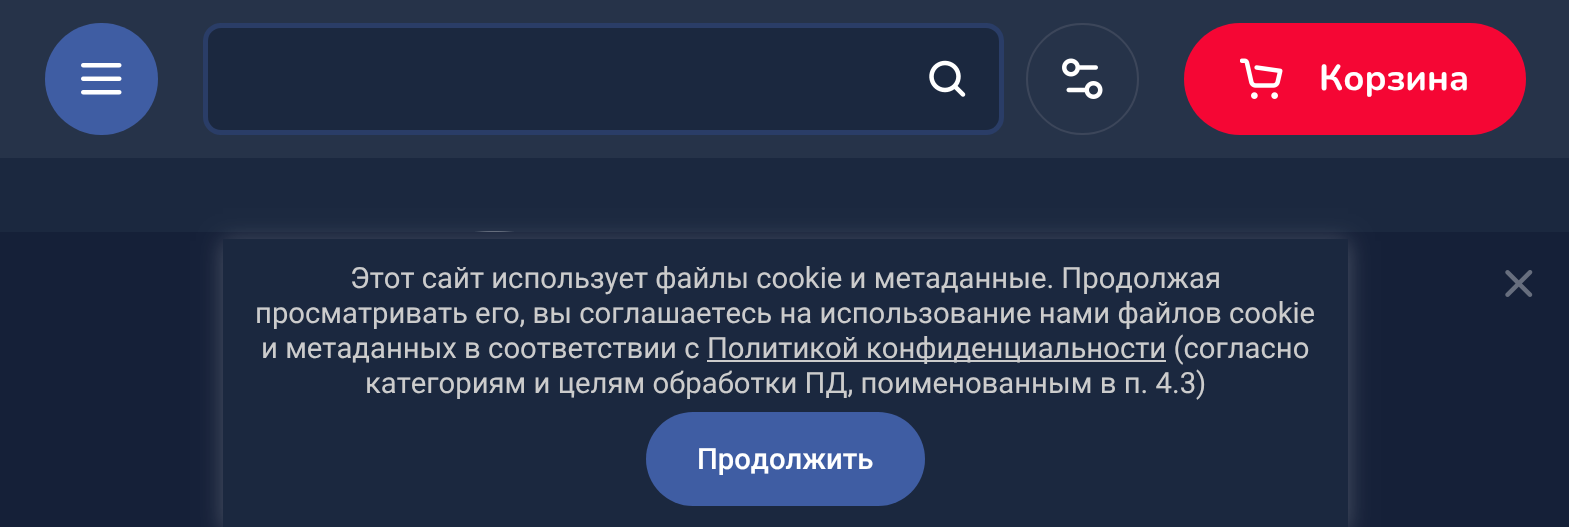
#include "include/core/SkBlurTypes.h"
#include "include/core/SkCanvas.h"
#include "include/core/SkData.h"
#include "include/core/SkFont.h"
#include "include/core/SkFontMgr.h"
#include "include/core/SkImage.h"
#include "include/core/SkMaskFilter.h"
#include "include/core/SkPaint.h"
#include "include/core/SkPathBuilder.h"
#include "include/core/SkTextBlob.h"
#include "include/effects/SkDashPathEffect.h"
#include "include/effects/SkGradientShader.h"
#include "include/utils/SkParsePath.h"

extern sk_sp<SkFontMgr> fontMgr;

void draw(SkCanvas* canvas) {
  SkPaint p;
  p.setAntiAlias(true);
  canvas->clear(SkColorSetRGB(27, 40, 63));
  p.setColor(SkColorSetRGB(38, 51, 73));
  canvas->drawRect(SkRect::MakeLTRB(0, 0, 1569, 158), p);
  p.setColor(SkColorSetRGB(63, 93, 163));
  canvas->drawRoundRect(SkRect::MakeLTRB(45, 23, 158, 135), 56, 56, p);
  canvas->drawImageRect(SkImages::DeferredFromEncodedData(SkData::MakeFromFileName("images/1.png")), SkRect::MakeLTRB(81, 63, 122, 95), SkSamplingOptions());
  p.setColor(SkColorSetRGB(27, 40, 63));
  canvas->drawRoundRect(SkRect::MakeLTRB(203, 23, 1004, 135), 18, 18, p);
  p.setStyle(SkPaint::kStroke_Style);
  p.setStrokeWidth(5);
  p.setColor(SkColorSetARGB(102, 63, 93, 163));
  canvas->drawRoundRect(SkRect::MakeLTRB(205.5f, 25.5f, 1001.5f, 132.5f), 15.5f, 15.5f, p);
  canvas->drawImageRect(SkImages::DeferredFromEncodedData(SkData::MakeFromFileName("images/2.png")), SkRect::MakeLTRB(929, 60, 966, 97), SkSamplingOptions());
  p.setStrokeWidth(2);
  p.setColor(SkColorSetRGB(60, 70, 90));
  canvas->drawRoundRect(SkRect::MakeLTRB(1027, 24, 1138, 134), 55, 55, p);
  canvas->drawImageRect(SkImages::DeferredFromEncodedData(SkData::MakeFromFileName("images/3.png")), SkRect::MakeLTRB(1062, 58, 1103, 99), SkSamplingOptions());
  p.setStyle(SkPaint::kFill_Style);
  p.setColor(SkColorSetRGB(245, 6, 52));
  canvas->drawRoundRect(SkRect::MakeLTRB(1184, 23, 1526, 135), 56, 56, p);
  canvas->drawImageRect(SkImages::DeferredFromEncodedData(SkData::MakeFromFileName("images/4.png")), SkRect::MakeLTRB(1240, 58, 1283, 99), SkSamplingOptions());
  canvas->drawImageRect(SkImages::DeferredFromEncodedData(SkData::MakeFromFileName("images/5.png")), SkRect::MakeLTRB(475, 231, 514, 232), SkSamplingOptions());
  p.setColor(SkColorSetRGB(21, 32, 56));
  canvas->drawRect(SkRect::MakeLTRB(0, 232, 1569, 527), p);
  canvas->drawImageRect(SkImages::DeferredFromEncodedData(SkData::MakeFromFileName("images/6.png")), SkRect::MakeLTRB(1505, 270, 1533, 297), SkSamplingOptions());
  p.setColor(SkColorSetARGB(59, 255, 255, 255));
  p.setMaskFilter(SkMaskFilter::MakeBlur(kNormal_SkBlurStyle, 11));
  canvas->drawRect(SkRect::MakeLTRB(223, 241, 1348, 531), p);
  p.setMaskFilter(nullptr);
  p.setColor(SkColorSetRGB(27, 40, 63));
  canvas->drawRect(SkRect::MakeLTRB(223, 239, 1348, 527), p);
  p.setColor(SkColorSetRGB(204, 204, 204));
  canvas->drawRect(SkRect::MakeLTRB(707, 360, 1166, 362), p);
  p.setColor(SkColorSetRGB(63, 93, 163));
  canvas->drawRoundRect(SkRect::MakeLTRB(646, 412, 925, 506), 47, 47, p);
  SkFont font1(fontMgr->matchFamilyStyle("Nunito", SkFontStyle::Bold()), 36);
  font1.setSubpixel(true);
  p.setColor(SK_ColorWHITE);
  canvas->drawString("Корзина", 1319, 90, font1, p);
  SkFont font2(fontMgr->matchFamilyStyle("Roboto", SkFontStyle::Normal()), 29.25f);
  font2.setSubpixel(true);
  p.setColor(SkColorSetRGB(204, 204, 204));
  canvas->drawString("Этот сайт использует файлы cookie и метаданные. Продолжая", 350, 288, font2, p);
  canvas->drawString("просматривать его, вы соглашаетесь на использование нами файлов cookie", 255, 323, font2, p);
  canvas->drawString("и метаданных в соответствии с", 261, 358, font2, p);
  canvas->drawString("Политикой конфиденциальности (согласно", 707, 358, font2, p);
  canvas->drawString("категориям и целям обработки ПД, поименованным в п. 4.3)", 365, 393, font2, p);
  SkFont font3(fontMgr->matchFamilyStyle("Roboto", SkFontStyle(500, SkFontStyle::kNormal_Width, SkFontStyle::kUpright_Slant)), 29.25f);
  font3.setSubpixel(true);
  p.setColor(SK_ColorWHITE);
  canvas->drawString("Продолжить", 697, 469, font3, p);
}
